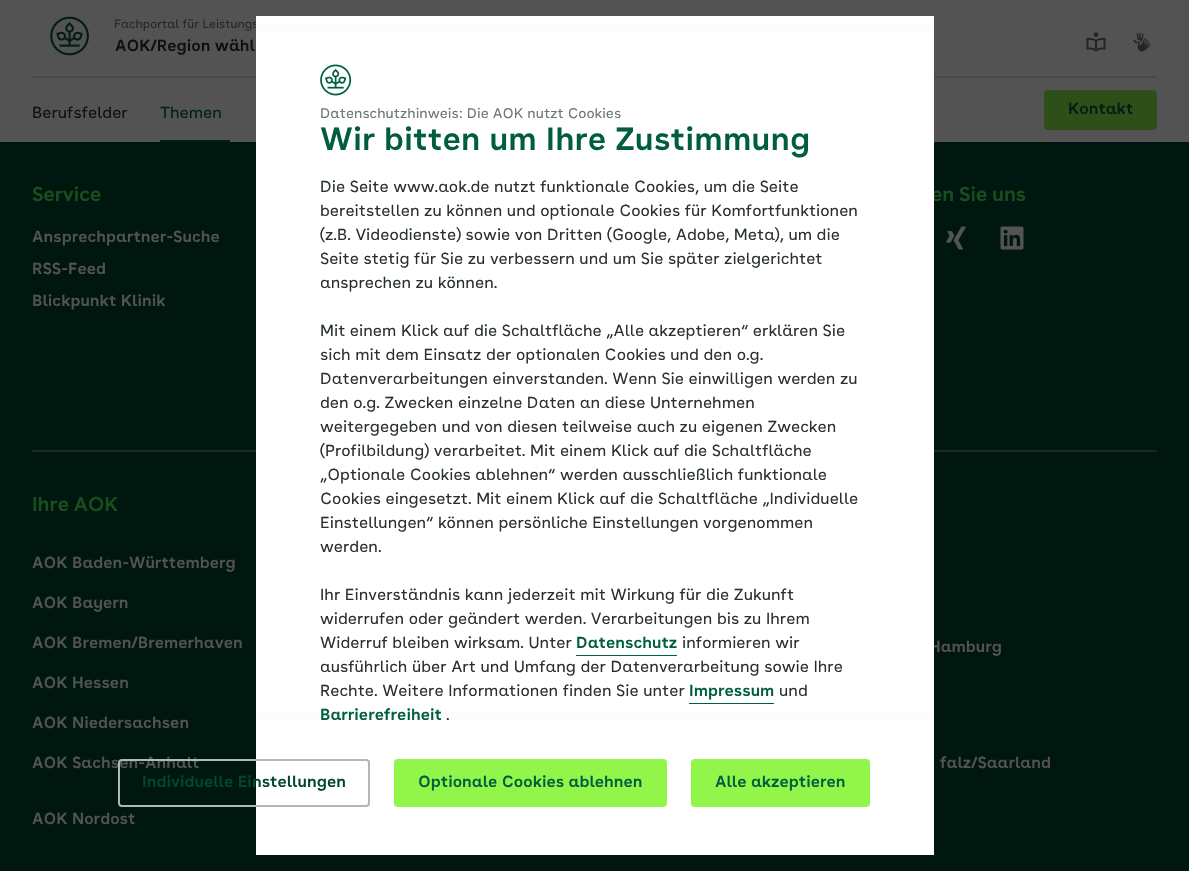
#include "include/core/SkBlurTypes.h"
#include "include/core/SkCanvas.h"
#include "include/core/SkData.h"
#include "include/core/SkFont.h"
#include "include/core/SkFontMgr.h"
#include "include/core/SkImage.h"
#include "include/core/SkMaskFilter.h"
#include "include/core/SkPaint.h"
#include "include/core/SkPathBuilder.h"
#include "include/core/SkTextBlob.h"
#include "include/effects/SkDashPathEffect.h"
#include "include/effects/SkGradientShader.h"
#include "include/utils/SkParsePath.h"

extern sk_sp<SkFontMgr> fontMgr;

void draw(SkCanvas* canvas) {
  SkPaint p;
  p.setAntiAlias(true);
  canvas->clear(SkColorSetRGB(0, 23, 15));
  p.setColor(SkColorSetRGB(83, 83, 83));
  canvas->drawRect(SkRect::MakeLTRB(0, 0, 1189, 142), p);
  p.setColor(SkColorSetRGB(72, 74, 75));
  canvas->drawRect(SkRect::MakeLTRB(32, 76, 1157, 78), p);
  canvas->drawImageRect(SkImages::DeferredFromEncodedData(SkData::MakeFromFileName("images/1.png")), SkRect::MakeLTRB(50, 16, 89, 56), SkSamplingOptions());
  canvas->drawImageRect(SkImages::DeferredFromEncodedData(SkData::MakeFromFileName("images/2.png")), SkRect::MakeLTRB(1086, 32, 1106, 52), SkSamplingOptions());
  canvas->drawImageRect(SkImages::DeferredFromEncodedData(SkData::MakeFromFileName("images/3.png")), SkRect::MakeLTRB(1133, 32, 1151, 52), SkSamplingOptions());
  p.setColor(SkColorSetRGB(0, 31, 21));
  canvas->drawRect(SkRect::MakeLTRB(160, 140, 230, 142), p);
  p.setStyle(SkPaint::kStroke_Style);
  p.setStrokeWidth(2);
  p.setColor(SkColorSetRGB(47, 79, 24));
  canvas->drawRoundRect(SkRect::MakeLTRB(1045, 91, 1156, 129), 3, 3, p);
  p.setStyle(SkPaint::kFill_Style);
  canvas->drawRoundRect(SkRect::MakeLTRB(1045, 91, 1156, 129), 4, 4, p);
  {
    const SkColor colors[] = {SK_ColorWHITE, SkColorSetRGB(227, 227, 227)};
    const float stops[] = {0, 1};
    const SkPoint ends[] = {{595, 711}, {595, 727}};
    p.setShader(SkGradientShader::MakeLinear(ends, colors, stops, 2, SkTileMode::kClamp));
    p.setAlpha(255);
  }
  canvas->drawRect(SkRect::MakeLTRB(256, 711, 934, 721), p);
  {
    const SkColor colors[] = {SkColorSetARGB(0, 255, 255, 255), SK_ColorWHITE};
    const float stops[] = {0, 0.7f};
    const SkPoint ends[] = {{595, 707}, {595, 727}};
    p.setShader(SkGradientShader::MakeLinear(ends, colors, stops, 2, SkTileMode::kClamp));
    p.setAlpha(255);
  }
  canvas->drawRect(SkRect::MakeLTRB(256, 714, 934, 727), p);
  p.setShader(nullptr);
  p.setColor(SK_ColorWHITE);
  canvas->drawRect(SkRect::MakeLTRB(256, 727, 934, 855), p);
  p.setStyle(SkPaint::kStroke_Style);
  p.setColor(SkColorSetRGB(145, 245, 74));
  canvas->drawRoundRect(SkRect::MakeLTRB(395, 760, 666, 806), 3, 3, p);
  p.setStyle(SkPaint::kFill_Style);
  canvas->drawRoundRect(SkRect::MakeLTRB(395, 760, 666, 806), 4, 4, p);
  p.setStyle(SkPaint::kStroke_Style);
  canvas->drawRoundRect(SkRect::MakeLTRB(692, 760, 869, 806), 3, 3, p);
  p.setStyle(SkPaint::kFill_Style);
  canvas->drawRoundRect(SkRect::MakeLTRB(692, 760, 869, 806), 4, 4, p);
  canvas->drawImageRect(SkImages::DeferredFromEncodedData(SkData::MakeFromFileName("images/5.png")), SkRect::MakeLTRB(946, 226, 966, 250), SkSamplingOptions());
  canvas->drawImageRect(SkImages::DeferredFromEncodedData(SkData::MakeFromFileName("images/6.png")), SkRect::MakeLTRB(1000, 226, 1024, 250), SkSamplingOptions());
  p.setColor(SkColorSetRGB(25, 41, 36));
  canvas->drawRect(SkRect::MakeLTRB(32, 450, 1157, 452), p);
  SkFont font1(fontMgr->matchFamilyStyle("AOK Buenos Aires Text", SkFontStyle::Normal()), 12);
  font1.setSubpixel(true);
  p.setColor(SkColorSetRGB(35, 38, 41));
  canvas->drawString("Fachportal für Leistungs", 114, 28, font1, p);
  SkFont font2(fontMgr->matchFamilyStyle("AOK Buenos Aires Text", SkFontStyle(600, SkFontStyle::kNormal_Width, SkFontStyle::kUpright_Slant)), 16);
  font2.setSubpixel(true);
  p.setColor(SkColorSetRGB(14, 15, 16));
  canvas->drawString("AOK/Region wähl", 115, 51, font2, p);
  SkFont font3(fontMgr->matchFamilyStyle("AOK Buenos Aires Text", SkFontStyle::Normal()), 16);
  font3.setSubpixel(true);
  canvas->drawString("Berufsfelder", 32, 118, font3, p);
  p.setColor(SkColorSetRGB(0, 31, 21));
  canvas->drawString("Themen", 160, 118, font3, p);
  canvas->drawString("Kontakt", 1068, 114, font2, p);
  {
    const SkColor colors[] = {SkColorSetRGB(227, 227, 227), SK_ColorWHITE};
    const float stops[] = {0, 1};
    const SkPoint ends[] = {{595, 16}, {595, 32}};
    p.setShader(SkGradientShader::MakeLinear(ends, colors, stops, 2, SkTileMode::kClamp));
    p.setAlpha(255);
  }
  canvas->drawRect(SkRect::MakeLTRB(256, 22, 934, 32), p);
  {
    const SkColor colors[] = {SK_ColorWHITE, SkColorSetARGB(0, 255, 255, 255)};
    const float stops[] = {0.3f, 1};
    const SkPoint ends[] = {{595, 16}, {595, 36}};
    p.setShader(SkGradientShader::MakeLinear(ends, colors, stops, 2, SkTileMode::kClamp));
    p.setAlpha(255);
  }
  canvas->drawRect(SkRect::MakeLTRB(256, 16, 934, 29), p);
  p.setShader(nullptr);
  p.setColor(SkColorSetRGB(41, 48, 51));
  canvas->drawString(".", 446, 720, font3, p);
  p.setColor(SkColorSetRGB(0, 94, 63));
  canvas->drawString("Optionale Cookies ablehnen", 418, 787, font2, p);
  canvas->drawString("Alle akzeptieren", 715, 787, font2, p);
  SkFont font4(fontMgr->matchFamilyStyle("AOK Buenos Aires", SkFontStyle(600, SkFontStyle::kNormal_Width, SkFontStyle::kUpright_Slant)), 20);
  font4.setSubpixel(true);
  p.setColor(SkColorSetRGB(26, 77, 30));
  canvas->drawString("Service", 32, 201, font4, p);
  p.setColor(SkColorSetRGB(83, 83, 83));
  canvas->drawString("Ansprechpartner-Suche", 32, 242, font2, p);
  canvas->drawString("RSS-Feed", 32, 274, font2, p);
  canvas->drawString("Blickpunkt Klinik", 32, 306, font2, p);
  p.setColor(SkColorSetRGB(26, 77, 30));
  canvas->drawString("en Sie uns", 931, 201, font4, p);
  canvas->drawString("Ihre AOK", 32, 511, font4, p);
  p.setColor(SkColorSetRGB(83, 83, 83));
  canvas->drawString("AOK Baden-Württemberg", 32, 568, font2, p);
  canvas->drawString("AOK Bayern", 32, 608, font2, p);
  canvas->drawString("AOK Bremen/Bremerhaven", 32, 648, font2, p);
  canvas->drawString("Hamburg", 929, 652, font2, p);
  p.setColor(SK_ColorWHITE);
  canvas->drawRect(SkRect::MakeLTRB(256, 32, 934, 711), p);
  p.setColor(SkColorSetRGB(0, 94, 63));
  canvas->drawString("Barrierefreiheit", 320, 720, font2, p);
  p.setColor(SkColorSetRGB(41, 48, 51));
  canvas->drawString("und", 779, 696, font3, p);
  p.setColor(SkColorSetRGB(0, 94, 63));
  canvas->drawString("Impressum", 689, 696, font2, p);
  canvas->drawRect(SkRect::MakeLTRB(689, 703, 774, 704), p);
  p.setColor(SkColorSetRGB(41, 48, 51));
  canvas->drawString("Rechte. Weitere Informationen finden Sie unter", 320, 696, font3, p);
  canvas->drawString("ausführlich über Art und Umfang der Datenverarbeitung sowie Ihre", 320, 672, font3, p);
  canvas->drawString("informieren wir", 682, 648, font3, p);
  p.setColor(SkColorSetRGB(0, 94, 63));
  canvas->drawString("Datenschutz", 576, 648, font2, p);
  canvas->drawRect(SkRect::MakeLTRB(576, 655, 677, 656), p);
  p.setColor(SkColorSetRGB(41, 48, 51));
  canvas->drawString("Widerruf bleiben wirksam. Unter", 320, 648, font3, p);
  canvas->drawString("widerrufen oder geändert werden. Verarbeitungen bis zu Ihrem", 320, 624, font3, p);
  canvas->drawString("Ihr Einverständnis kann jederzeit mit Wirkung für die Zukunft", 320, 600, font3, p);
  canvas->drawString("werden.", 320, 552, font3, p);
  canvas->drawString("Einstellungen“ können persönliche Einstellungen vorgenommen", 320, 528, font3, p);
  canvas->drawString("Cookies eingesetzt. Mit einem Klick auf die Schaltfläche „Individuelle", 320, 504, font3, p);
  canvas->drawString("„Optionale Cookies ablehnen“ werden ausschließlich funktionale", 320, 480, font3, p);
  canvas->drawString("(Profilbildung) verarbeitet. Mit einem Klick auf die Schaltfläche", 320, 456, font3, p);
  canvas->drawString("weitergegeben und von diesen teilweise auch zu eigenen Zwecken", 320, 432, font3, p);
  canvas->drawString("den o.g. Zwecken einzelne Daten an diese Unternehmen", 320, 408, font3, p);
  canvas->drawString("Datenverarbeitungen einverstanden. Wenn Sie einwilligen werden zu", 320, 384, font3, p);
  canvas->drawString("sich mit dem Einsatz der optionalen Cookies und den o.g.", 320, 360, font3, p);
  canvas->drawString("Mit einem Klick auf die Schaltfläche „Alle akzeptieren“ erklären Sie", 320, 336, font3, p);
  canvas->drawString("ansprechen zu können.", 320, 288, font3, p);
  canvas->drawString("Seite stetig für Sie zu verbessern und um Sie später zielgerichtet", 320, 264, font3, p);
  canvas->drawString("(z.B. Videodienste) sowie von Dritten (Google, Adobe, Meta), um die", 320, 240, font3, p);
  canvas->drawString("bereitstellen zu können und optionale Cookies für Komfortfunktionen", 320, 216, font3, p);
  canvas->drawString("Die Seite www.aok.de nutzt funktionale Cookies, um die Seite", 320, 192, font3, p);
  SkFont font5(fontMgr->matchFamilyStyle("AOK Buenos Aires Text", SkFontStyle(600, SkFontStyle::kNormal_Width, SkFontStyle::kUpright_Slant)), 32);
  font5.setSubpixel(true);
  p.setColor(SkColorSetRGB(0, 94, 63));
  canvas->drawString("Wir bitten um Ihre Zustimmung", 320, 150, font5, p);
  SkFont font6(fontMgr->matchFamilyStyle("AOK Buenos Aires Text", SkFontStyle::Normal()), 14);
  font6.setSubpixel(true);
  p.setColor(SkColorSetRGB(109, 118, 124));
  canvas->drawString("Datenschutzhinweis: Die AOK nutzt Cookies", 320, 118, font6, p);
  canvas->drawImageRect(SkImages::DeferredFromEncodedData(SkData::MakeFromFileName("images/4.png")), SkRect::MakeLTRB(320, 64, 352, 96), SkSamplingOptions());
  p.setColor(SkColorSetRGB(83, 83, 83));
  canvas->drawString("AOK Hessen", 32, 688, font2, p);
  canvas->drawString("AOK Niedersachsen", 32, 728, font2, p);
  canvas->drawString("AOK Sachsen-Anhalt", 32, 768, font2, p);
  p.setStyle(SkPaint::kStroke_Style);
  p.setColor(SkColorSetRGB(175, 182, 188));
  canvas->drawRoundRect(SkRect::MakeLTRB(119, 760, 369, 806), 3, 3, p);
  p.setStyle(SkPaint::kFill_Style);
  p.setColor(SkColorSetRGB(0, 71, 48));
  canvas->drawString("Individuelle Einstellungen", 142, 787, font2, p);
  p.setColor(SkColorSetRGB(83, 83, 83));
  canvas->drawString("falz/Saarland", 940, 768, font2, p);
  canvas->drawString("AOK Nordost", 32, 824, font2, p);
}
